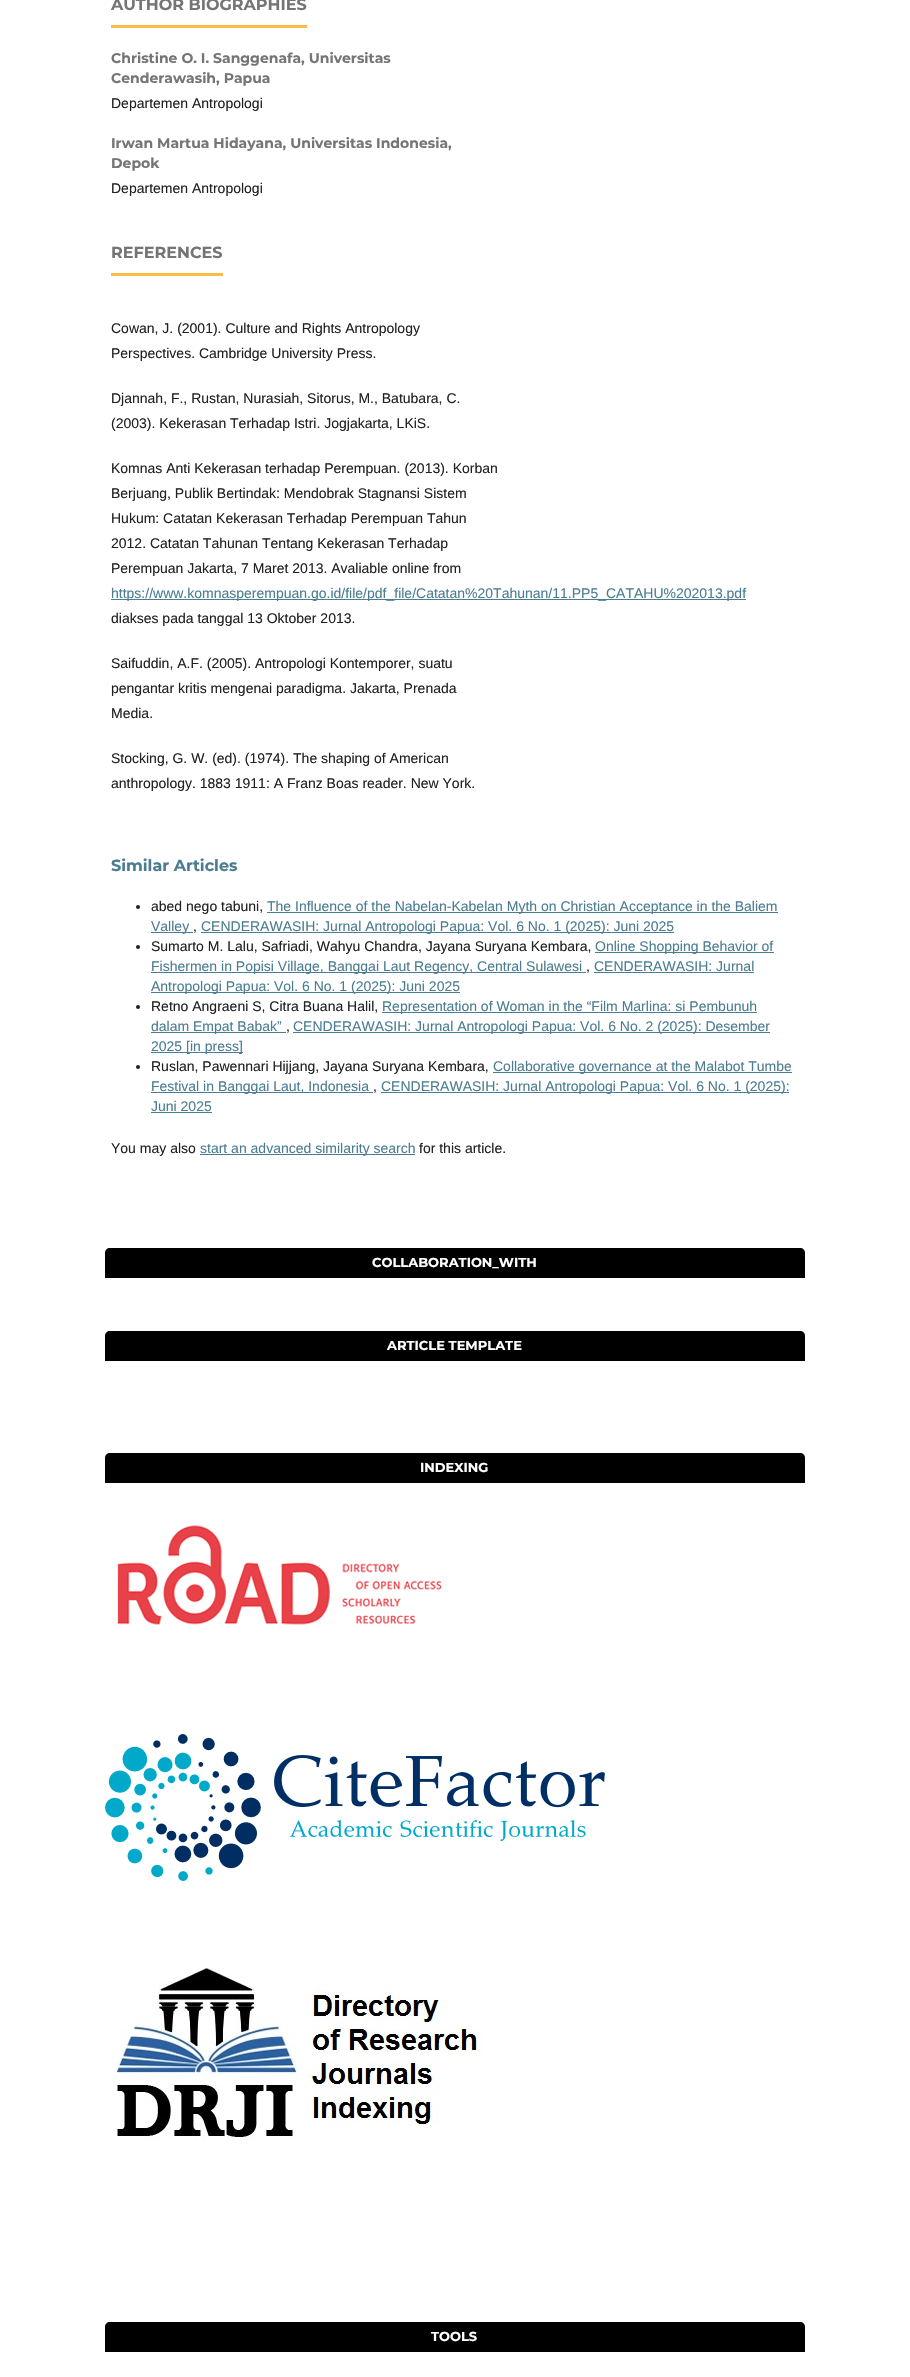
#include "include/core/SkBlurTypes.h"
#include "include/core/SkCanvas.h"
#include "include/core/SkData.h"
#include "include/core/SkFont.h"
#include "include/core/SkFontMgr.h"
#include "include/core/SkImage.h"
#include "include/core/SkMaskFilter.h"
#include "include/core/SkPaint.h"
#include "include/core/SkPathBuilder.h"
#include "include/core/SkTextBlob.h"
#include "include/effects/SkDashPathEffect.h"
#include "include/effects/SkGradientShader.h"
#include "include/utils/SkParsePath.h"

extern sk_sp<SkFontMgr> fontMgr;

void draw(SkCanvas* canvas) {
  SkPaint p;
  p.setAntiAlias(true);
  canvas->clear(SK_ColorWHITE);
  p.setColor(SkColorSetRGB(247, 188, 74));
  canvas->drawRect(SkRect::MakeLTRB(111, 25, 307, 28), p);
  canvas->drawRect(SkRect::MakeLTRB(111, 273, 223, 276), p);
  p.setColor(SkColorSetRGB(75, 125, 146));
  canvas->drawRect(SkRect::MakeLTRB(111, 599, 746, 600), p);
  p.setColor(SkColorSetRGB(33, 33, 33));
  canvas->drawCircle(138, 907, 2, p);
  p.setColor(SkColorSetRGB(75, 125, 146));
  canvas->drawRect(SkRect::MakeLTRB(267, 912, 778, 913), p);
  canvas->drawRect(SkRect::MakeLTRB(151, 932, 193, 933), p);
  canvas->drawRect(SkRect::MakeLTRB(201, 932, 674, 933), p);
  p.setColor(SkColorSetRGB(33, 33, 33));
  canvas->drawCircle(138, 947, 2, p);
  p.setColor(SkColorSetRGB(75, 125, 146));
  canvas->drawRect(SkRect::MakeLTRB(595, 952, 774, 953), p);
  canvas->drawRect(SkRect::MakeLTRB(151, 972, 586, 973), p);
  canvas->drawRect(SkRect::MakeLTRB(594, 972, 754, 973), p);
  canvas->drawRect(SkRect::MakeLTRB(151, 992, 460, 993), p);
  p.setColor(SkColorSetRGB(33, 33, 33));
  canvas->drawCircle(138, 1007, 2, p);
  p.setColor(SkColorSetRGB(75, 125, 146));
  canvas->drawRect(SkRect::MakeLTRB(382, 1012, 757, 1013), p);
  canvas->drawRect(SkRect::MakeLTRB(151, 1032, 286, 1033), p);
  canvas->drawRect(SkRect::MakeLTRB(293, 1032, 770, 1033), p);
  canvas->drawRect(SkRect::MakeLTRB(151, 1052, 243, 1053), p);
  p.setColor(SkColorSetRGB(33, 33, 33));
  canvas->drawCircle(138, 1067, 2, p);
  p.setColor(SkColorSetRGB(75, 125, 146));
  canvas->drawRect(SkRect::MakeLTRB(493, 1072, 792, 1073), p);
  canvas->drawRect(SkRect::MakeLTRB(151, 1092, 373, 1093), p);
  canvas->drawRect(SkRect::MakeLTRB(381, 1092, 789, 1093), p);
  canvas->drawRect(SkRect::MakeLTRB(151, 1112, 212, 1113), p);
  canvas->drawRect(SkRect::MakeLTRB(200, 1154, 415, 1155), p);
  p.setColor(SK_ColorBLACK);
  canvas->drawPath(SkPathBuilder().moveTo(110, 1248).lineTo(800, 1248).cubicTo(803, 1248, 805, 1250, 805, 1253).lineTo(805, 1278).lineTo(105, 1278).lineTo(105, 1253).cubicTo(105, 1250, 107, 1248, 110, 1248).close().detach(), p);
  canvas->drawPath(SkPathBuilder().moveTo(110, 1331).lineTo(800, 1331).cubicTo(803, 1331, 805, 1333, 805, 1336).lineTo(805, 1361).lineTo(105, 1361).lineTo(105, 1336).cubicTo(105, 1333, 107, 1331, 110, 1331).close().detach(), p);
  canvas->drawPath(SkPathBuilder().moveTo(110, 1453).lineTo(800, 1453).cubicTo(803, 1453, 805, 1455, 805, 1458).lineTo(805, 1483).lineTo(105, 1483).lineTo(105, 1458).cubicTo(105, 1455, 107, 1453, 110, 1453).close().detach(), p);
  canvas->drawImageRect(SkImages::DeferredFromEncodedData(SkData::MakeFromFileName("images/1.png")), SkRect::MakeLTRB(117, 1525, 442, 1628), SkSamplingOptions());
  canvas->drawImageRect(SkImages::DeferredFromEncodedData(SkData::MakeFromFileName("images/2.png")), SkRect::MakeLTRB(105, 1734, 605, 1881), SkSamplingOptions());
  canvas->drawImageRect(SkImages::DeferredFromEncodedData(SkData::MakeFromFileName("images/3.png")), SkRect::MakeLTRB(113, 1967, 484, 2141), SkSamplingOptions());
  canvas->drawPath(SkPathBuilder().moveTo(110, 2322).lineTo(800, 2322).cubicTo(803, 2322, 805, 2324, 805, 2327).lineTo(805, 2352).lineTo(105, 2352).lineTo(105, 2327).cubicTo(105, 2324, 107, 2322, 110, 2322).close().detach(), p);
  SkFont font1(fontMgr->matchFamilyStyle("Montserrat", SkFontStyle::Bold()), 16);
  font1.setSubpixel(true);
  p.setColor(SkColorSetRGB(117, 117, 117));
  canvas->drawString("AUTHOR BIOGRAPHIES", 111, 10, font1, p);
  SkFont font2(fontMgr->matchFamilyStyle("Montserrat", SkFontStyle::Bold()), 14);
  font2.setSubpixel(true);
  canvas->drawString("Christine O. I. Sanggenafa, Universitas", 111, 63, font2, p);
  canvas->drawString("Cenderawasih, Papua", 111, 83, font2, p);
  SkFont font3(fontMgr->matchFamilyStyle("Liberation Sans", SkFontStyle::Normal()), 14);
  font3.setSubpixel(true);
  p.setColor(SkColorSetRGB(33, 33, 33));
  canvas->drawString("Departemen Antropologi", 111, 108, font3, p);
  p.setColor(SkColorSetRGB(117, 117, 117));
  canvas->drawString("Irwan Martua Hidayana, Universitas Indonesia,", 111, 148, font2, p);
  canvas->drawString("Depok", 111, 168, font2, p);
  p.setColor(SkColorSetRGB(33, 33, 33));
  canvas->drawString("Departemen Antropologi", 111, 193, font3, p);
  p.setColor(SkColorSetRGB(117, 117, 117));
  canvas->drawString("REFERENCES", 111, 258, font1, p);
  p.setColor(SkColorSetRGB(33, 33, 33));
  canvas->drawString("Cowan, J. (2001). Culture and Rights Antropology", 111, 333, font3, p);
  canvas->drawString("Perspectives. Cambridge University Press.", 111, 358, font3, p);
  canvas->drawString("Djannah, F., Rustan, Nurasiah, Sitorus, M., Batubara, C.", 111, 403, font3, p);
  canvas->drawString("(2003). Kekerasan Terhadap Istri. Jogjakarta, LKiS.", 111, 428, font3, p);
  canvas->drawString("Komnas Anti Kekerasan terhadap Perempuan. (2013). Korban", 111, 473, font3, p);
  canvas->drawString("Berjuang, Publik Bertindak: Mendobrak Stagnansi Sistem", 111, 498, font3, p);
  canvas->drawString("Hukum: Catatan Kekerasan Terhadap Perempuan Tahun", 111, 523, font3, p);
  canvas->drawString("2012. Catatan Tahunan Tentang Kekerasan Terhadap", 111, 548, font3, p);
  canvas->drawString("Perempuan Jakarta, 7 Maret 2013. Avaliable online from", 111, 573, font3, p);
  p.setColor(SkColorSetRGB(75, 125, 146));
  canvas->drawString("https://www.komnasperempuan.go.id/file/pdf_file/Catatan%20Tahunan/11.PP5_CATAHU%202013.pdf", 111, 598, font3, p);
  p.setColor(SkColorSetRGB(33, 33, 33));
  canvas->drawString("diakses pada tanggal 13 Oktober 2013.", 111, 623, font3, p);
  canvas->drawString("Saifuddin, A.F. (2005). Antropologi Kontemporer, suatu", 111, 668, font3, p);
  canvas->drawString("pengantar kritis mengenai paradigma. Jakarta, Prenada", 111, 693, font3, p);
  canvas->drawString("Media.", 111, 718, font3, p);
  canvas->drawString("Stocking, G. W. (ed). (1974). The shaping of American", 111, 763, font3, p);
  canvas->drawString("anthropology. 1883 1911: A Franz Boas reader. New York.", 111, 788, font3, p);
  p.setColor(SkColorSetRGB(75, 125, 146));
  canvas->drawString("Similar Articles", 111, 871, font1, p);
  p.setColor(SkColorSetRGB(33, 33, 33));
  canvas->drawString("abed nego tabuni,", 151, 911, font3, p);
  p.setColor(SkColorSetRGB(75, 125, 146));
  canvas->drawString("The Influence of the Nabelan-Kabelan Myth on Christian Acceptance in the Baliem", 267, 911, font3, p);
  canvas->drawString("Valley", 151, 931, font3, p);
  p.setColor(SkColorSetRGB(33, 33, 33));
  canvas->drawString(",", 193, 931, font3, p);
  p.setColor(SkColorSetRGB(75, 125, 146));
  canvas->drawString("CENDERAWASIH: Jurnal Antropologi Papua: Vol. 6 No. 1 (2025): Juni 2025", 201, 931, font3, p);
  p.setColor(SkColorSetRGB(33, 33, 33));
  canvas->drawString("Sumarto M. Lalu, Safriadi, Wahyu Chandra, Jayana Suryana Kembara,", 151, 951, font3, p);
  p.setColor(SkColorSetRGB(75, 125, 146));
  canvas->drawString("Online Shopping Behavior of", 595, 951, font3, p);
  canvas->drawString("Fishermen in Popisi Village, Banggai Laut Regency, Central Sulawesi", 151, 971, font3, p);
  p.setColor(SkColorSetRGB(33, 33, 33));
  canvas->drawString(",", 586, 971, font3, p);
  p.setColor(SkColorSetRGB(75, 125, 146));
  canvas->drawString("CENDERAWASIH: Jurnal", 594, 971, font3, p);
  canvas->drawString("Antropologi Papua: Vol. 6 No. 1 (2025): Juni 2025", 151, 991, font3, p);
  p.setColor(SkColorSetRGB(33, 33, 33));
  canvas->drawString("Retno Angraeni S, Citra Buana Halil,", 151, 1011, font3, p);
  p.setColor(SkColorSetRGB(75, 125, 146));
  canvas->drawString("Representation of Woman in the “Film Marlina: si Pembunuh", 382, 1011, font3, p);
  canvas->drawString("dalam Empat Babak”", 151, 1031, font3, p);
  p.setColor(SkColorSetRGB(33, 33, 33));
  canvas->drawString(",", 286, 1031, font3, p);
  p.setColor(SkColorSetRGB(75, 125, 146));
  canvas->drawString("CENDERAWASIH: Jurnal Antropologi Papua: Vol. 6 No. 2 (2025): Desember", 293, 1031, font3, p);
  canvas->drawString("2025 [in press]", 151, 1051, font3, p);
  p.setColor(SkColorSetRGB(33, 33, 33));
  canvas->drawString("Ruslan, Pawennari Hijjang, Jayana Suryana Kembara,", 151, 1071, font3, p);
  p.setColor(SkColorSetRGB(75, 125, 146));
  canvas->drawString("Collaborative governance at the Malabot Tumbe", 493, 1071, font3, p);
  canvas->drawString("Festival in Banggai Laut, Indonesia", 151, 1091, font3, p);
  p.setColor(SkColorSetRGB(33, 33, 33));
  canvas->drawString(",", 373, 1091, font3, p);
  p.setColor(SkColorSetRGB(75, 125, 146));
  canvas->drawString("CENDERAWASIH: Jurnal Antropologi Papua: Vol. 6 No. 1 (2025):", 381, 1091, font3, p);
  canvas->drawString("Juni 2025", 151, 1111, font3, p);
  p.setColor(SkColorSetRGB(33, 33, 33));
  canvas->drawString("You may also", 111, 1153, font3, p);
  p.setColor(SkColorSetRGB(75, 125, 146));
  canvas->drawString("start an advanced similarity search", 200, 1153, font3, p);
  p.setColor(SkColorSetRGB(33, 33, 33));
  canvas->drawString("for this article.", 419, 1153, font3, p);
  SkFont font4(fontMgr->matchFamilyStyle("Montserrat", SkFontStyle::Bold()), 13);
  font4.setSubpixel(true);
  p.setColor(SK_ColorWHITE);
  canvas->drawString("COLLABORATION_WITH", 372, 1267, font4, p);
  canvas->drawString("ARTICLE TEMPLATE", 387, 1350, font4, p);
  canvas->drawString("INDEXING", 420, 1472, font4, p);
  canvas->drawString("TOOLS", 431, 2341, font4, p);
}
